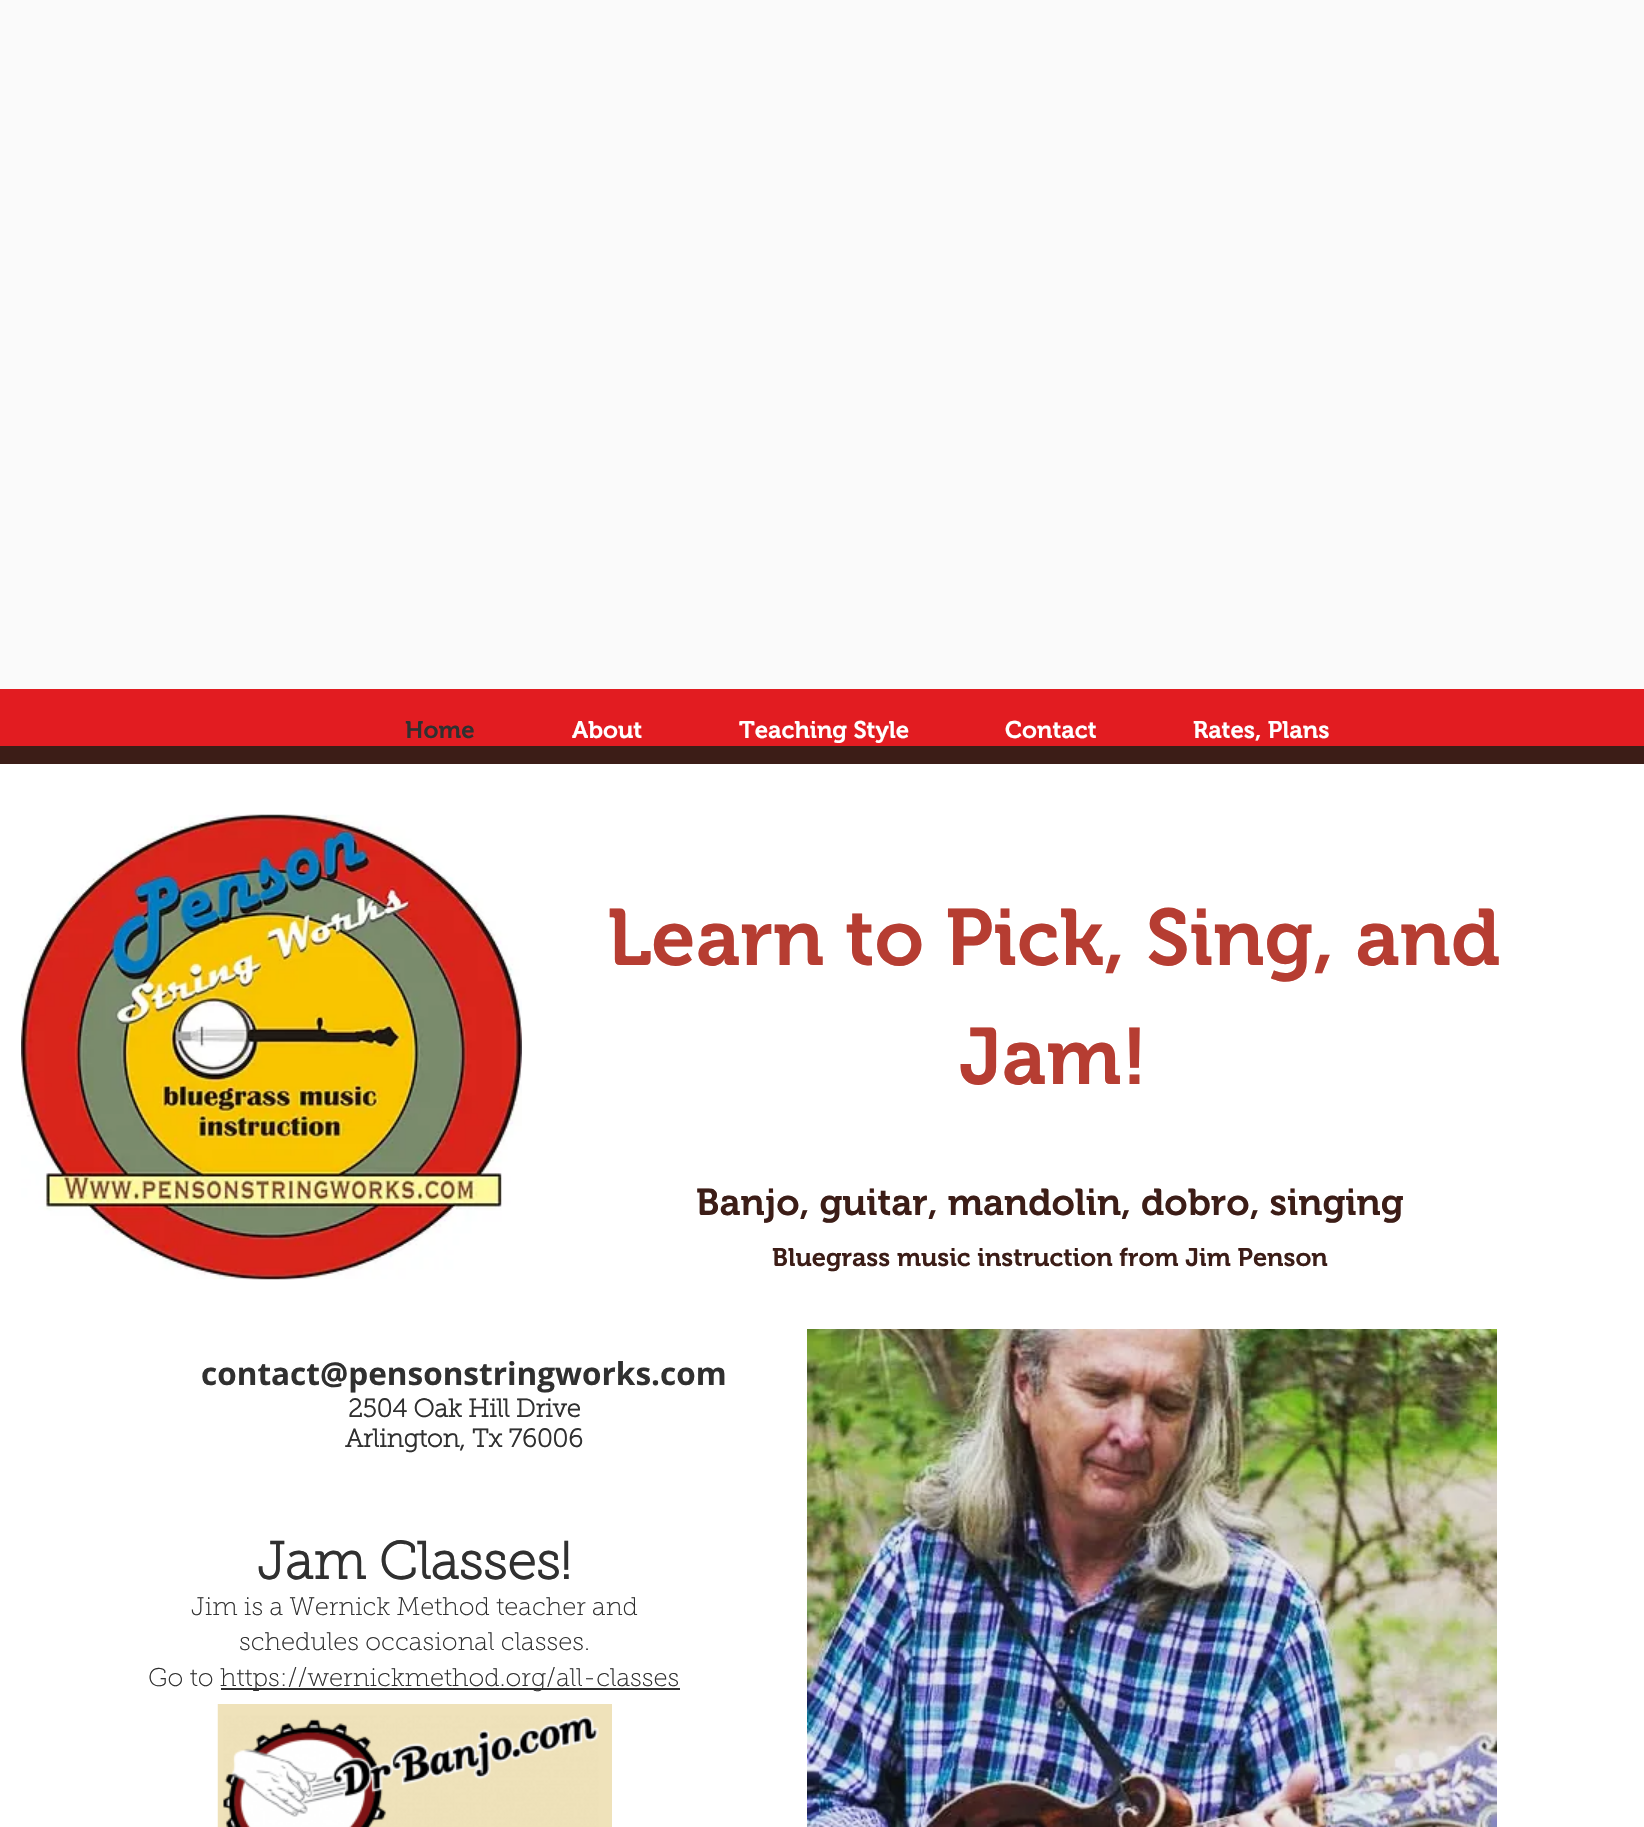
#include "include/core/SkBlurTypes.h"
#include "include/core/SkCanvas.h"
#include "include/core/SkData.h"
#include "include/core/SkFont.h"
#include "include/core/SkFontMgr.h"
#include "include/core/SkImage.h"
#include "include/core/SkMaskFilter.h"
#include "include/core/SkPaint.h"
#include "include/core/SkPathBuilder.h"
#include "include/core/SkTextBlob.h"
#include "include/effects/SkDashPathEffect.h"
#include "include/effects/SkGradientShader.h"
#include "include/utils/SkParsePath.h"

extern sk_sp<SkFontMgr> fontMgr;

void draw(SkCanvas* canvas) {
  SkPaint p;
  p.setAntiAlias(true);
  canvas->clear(SK_ColorWHITE);
  p.setColor(SkColorSetRGB(250, 250, 250));
  canvas->drawRect(SkRect::MakeLTRB(0, 0, 1644, 689), p);
  p.setColor(SkColorSetRGB(226, 28, 33));
  canvas->drawRect(SkRect::MakeLTRB(0, 689, 1644, 746), p);
  p.setColor(SkColorSetRGB(60, 29, 23));
  canvas->drawRect(SkRect::MakeLTRB(0, 746, 1644, 764), p);
  canvas->drawImageRect(SkImages::DeferredFromEncodedData(SkData::MakeFromFileName("images/1.png")), SkRect::MakeLTRB(21, 814, 522, 1280), SkSamplingOptions());
  canvas->drawImageRect(SkImages::DeferredFromEncodedData(SkData::MakeFromFileName("images/2.png")), SkRect::MakeLTRB(807, 1329, 1497, 1827), SkSamplingOptions());
  p.setColor(SkColorSetRGB(48, 48, 48));
  canvas->drawRect(SkRect::MakeLTRB(221, 1688, 680, 1690), p);
  canvas->drawImageRect(SkImages::DeferredFromEncodedData(SkData::MakeFromFileName("images/3.png")), SkRect::MakeLTRB(217, 1704, 612, 1827), SkSamplingOptions());
  SkFont font1(fontMgr->matchFamilyStyle("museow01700", SkFontStyle(600, SkFontStyle::kNormal_Width, SkFontStyle::kUpright_Slant)), 24);
  font1.setSubpixel(true);
  canvas->drawString("Home", 405, 738, font1, p);
  p.setColor(SK_ColorWHITE);
  canvas->drawString("About", 572, 738, font1, p);
  canvas->drawString("Teaching Style", 739, 738, font1, p);
  canvas->drawString("Contact", 1005, 738, font1, p);
  canvas->drawString("Rates, Plans", 1193, 738, font1, p);
  SkFont font2(fontMgr->matchFamilyStyle("museow01700", SkFontStyle(600, SkFontStyle::kNormal_Width, SkFontStyle::kUpright_Slant)), 79.5f);
  font2.setSubpixel(true);
  p.setColor(SkColorSetRGB(182, 61, 50));
  canvas->drawString("Learn to Pick, Sing, and", 607, 965, font2, p);
  canvas->drawString("Jam!", 959, 1084, font2, p);
  SkFont font3(fontMgr->matchFamilyStyle("museow01700", SkFontStyle(600, SkFontStyle::kNormal_Width, SkFontStyle::kUpright_Slant)), 37.5f);
  font3.setSubpixel(true);
  p.setColor(SkColorSetRGB(60, 29, 23));
  canvas->drawString("Banjo, guitar, mandolin, dobro, singing", 696, 1215, font3, p);
  SkFont font4(fontMgr->matchFamilyStyle("museow01700", SkFontStyle(600, SkFontStyle::kNormal_Width, SkFontStyle::kUpright_Slant)), 25.5f);
  font4.setSubpixel(true);
  canvas->drawString("Bluegrass music instruction from Jim Penson", 772, 1266, font4, p);
  SkFont font5(fontMgr->matchFamilyStyle("Open Sans", SkFontStyle::Bold()), 31.5f);
  font5.setSubpixel(true);
  p.setColor(SkColorSetRGB(48, 48, 48));
  canvas->drawString("contact@pensonstringworks.com", 201, 1385, font5, p);
  SkFont font6(fontMgr->matchFamilyStyle("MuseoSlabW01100", SkFontStyle::Bold()), 25.5f);
  font6.setSubpixel(true);
  canvas->drawString("2504 Oak Hill Drive", 348, 1417, font6, p);
  canvas->drawString("Arlington, Tx 76006", 345, 1447, font6, p);
  SkFont font7(fontMgr->matchFamilyStyle("MuseoSlabW01100", SkFontStyle::Bold()), 52.5f);
  font7.setSubpixel(true);
  canvas->drawString("Jam Classes!", 257, 1579, font7, p);
  SkFont font8(fontMgr->matchFamilyStyle("MuseoSlabW01100", SkFontStyle(100, SkFontStyle::kNormal_Width, SkFontStyle::kUpright_Slant)), 25.5f);
  font8.setSubpixel(true);
  canvas->drawString("Jim is a Wernick Method teacher and", 191, 1615, font8, p);
  canvas->drawString("schedules occasional classes.", 239, 1650, font8, p);
  canvas->drawString("Go to", 148, 1686, font8, p);
  canvas->drawString("https://wernickmethod.org/all-classes", 220, 1686, font8, p);
}
